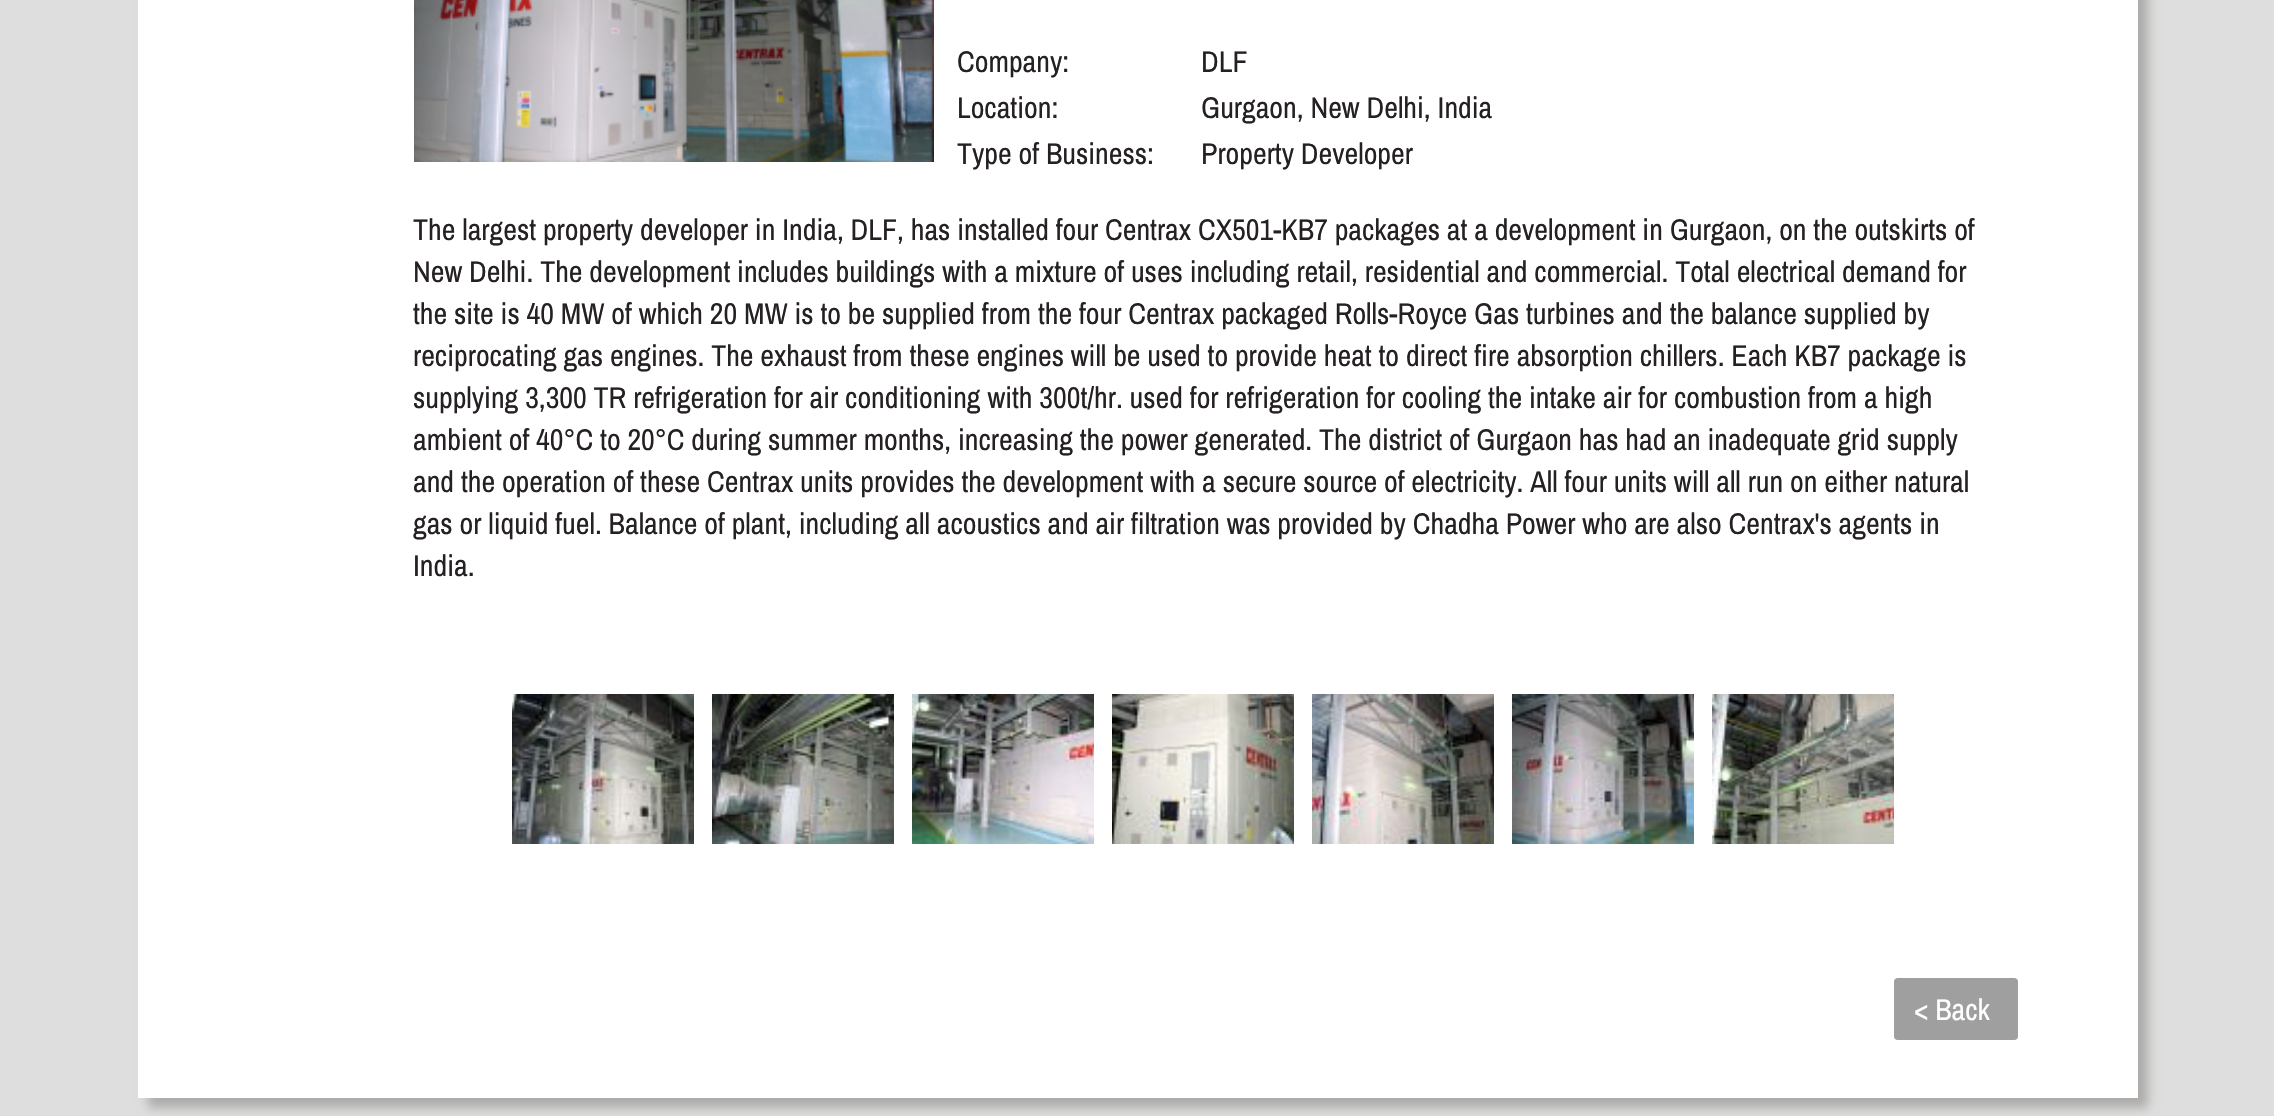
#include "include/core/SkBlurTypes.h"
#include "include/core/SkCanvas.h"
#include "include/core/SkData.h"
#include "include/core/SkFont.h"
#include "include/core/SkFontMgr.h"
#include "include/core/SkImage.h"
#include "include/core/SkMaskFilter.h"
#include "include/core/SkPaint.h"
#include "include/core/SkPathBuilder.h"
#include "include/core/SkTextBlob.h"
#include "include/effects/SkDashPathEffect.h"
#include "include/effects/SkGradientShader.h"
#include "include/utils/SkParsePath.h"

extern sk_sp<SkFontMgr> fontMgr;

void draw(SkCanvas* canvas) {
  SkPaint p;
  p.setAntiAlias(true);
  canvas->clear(SkColorSetRGB(222, 222, 222));
  p.setColor(SkColorSetRGB(173, 172, 170));
  p.setMaskFilter(SkMaskFilter::MakeBlur(kNormal_SkBlurStyle, 5));
  canvas->drawRect(SkRect::MakeLTRB(148, -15, 2148, 1108), p);
  p.setMaskFilter(nullptr);
  p.setColor(SK_ColorWHITE);
  canvas->drawRect(SkRect::MakeLTRB(138, 0, 2138, 1098), p);
  canvas->drawImageRect(SkImages::DeferredFromEncodedData(SkData::MakeFromFileName("images/1.png")), SkRect::MakeLTRB(414, 0, 934, 162), SkSamplingOptions());
  canvas->drawImageRect(SkImages::DeferredFromEncodedData(SkData::MakeFromFileName("images/2.png")), SkRect::MakeLTRB(512, 694, 694, 844), SkSamplingOptions());
  canvas->drawImageRect(SkImages::DeferredFromEncodedData(SkData::MakeFromFileName("images/3.png")), SkRect::MakeLTRB(712, 694, 894, 844), SkSamplingOptions());
  canvas->drawImageRect(SkImages::DeferredFromEncodedData(SkData::MakeFromFileName("images/4.png")), SkRect::MakeLTRB(912, 694, 1094, 844), SkSamplingOptions());
  canvas->drawImageRect(SkImages::DeferredFromEncodedData(SkData::MakeFromFileName("images/5.png")), SkRect::MakeLTRB(1112, 694, 1294, 844), SkSamplingOptions());
  canvas->drawImageRect(SkImages::DeferredFromEncodedData(SkData::MakeFromFileName("images/6.png")), SkRect::MakeLTRB(1312, 694, 1494, 844), SkSamplingOptions());
  canvas->drawImageRect(SkImages::DeferredFromEncodedData(SkData::MakeFromFileName("images/7.png")), SkRect::MakeLTRB(1512, 694, 1694, 844), SkSamplingOptions());
  canvas->drawImageRect(SkImages::DeferredFromEncodedData(SkData::MakeFromFileName("images/8.png")), SkRect::MakeLTRB(1712, 694, 1894, 844), SkSamplingOptions());
  p.setColor(SkColorSetRGB(159, 159, 159));
  canvas->drawRoundRect(SkRect::MakeLTRB(1894, 978, 2018, 1040), 4, 4, p);
  SkFont font1(fontMgr->matchFamilyStyle("Archivo Narrow", SkFontStyle::Normal()), 30);
  font1.setSubpixel(true);
  p.setColor(SkColorSetRGB(37, 33, 34));
  canvas->drawString("Company:", 957, 72, font1, p);
  canvas->drawString("DLF", 1201, 72, font1, p);
  canvas->drawString("Location:", 957, 118, font1, p);
  canvas->drawString("Gurgaon, New Delhi, India", 1201, 118, font1, p);
  canvas->drawString("Type of Business:", 957, 164, font1, p);
  canvas->drawString("Property Developer", 1201, 164, font1, p);
  canvas->drawString("The largest property developer in India, DLF, has installed four Centrax CX501-KB7 packages at a development in Gurgaon, on the outskirts of", 413, 240, font1, p);
  canvas->drawString("New Delhi. The development includes buildings with a mixture of uses including retail, residential and commercial. Total electrical demand for", 413, 282, font1, p);
  canvas->drawString("the site is 40 MW of which 20 MW is to be supplied from the four Centrax packaged Rolls-Royce Gas turbines and the balance supplied by", 413, 324, font1, p);
  canvas->drawString("reciprocating gas engines. The exhaust from these engines will be used to provide heat to direct fire absorption chillers. Each KB7 package is", 413, 366, font1, p);
  canvas->drawString("supplying 3,300 TR refrigeration for air conditioning with 300t/hr. used for refrigeration for cooling the intake air for combustion from a high", 413, 408, font1, p);
  canvas->drawString("ambient of 40°C to 20°C during summer months, increasing the power generated. The district of Gurgaon has had an inadequate grid supply", 413, 450, font1, p);
  canvas->drawString("and the operation of these Centrax units provides the development with a secure source of electricity. All four units will all run on either natural", 413, 492, font1, p);
  canvas->drawString("gas or liquid fuel. Balance of plant, including all acoustics and air filtration was provided by Chadha Power who are also Centrax's agents in", 413, 534, font1, p);
  canvas->drawString("India.", 413, 576, font1, p);
  p.setColor(SK_ColorWHITE);
  canvas->drawString("< Back", 1914, 1020, font1, p);
}
